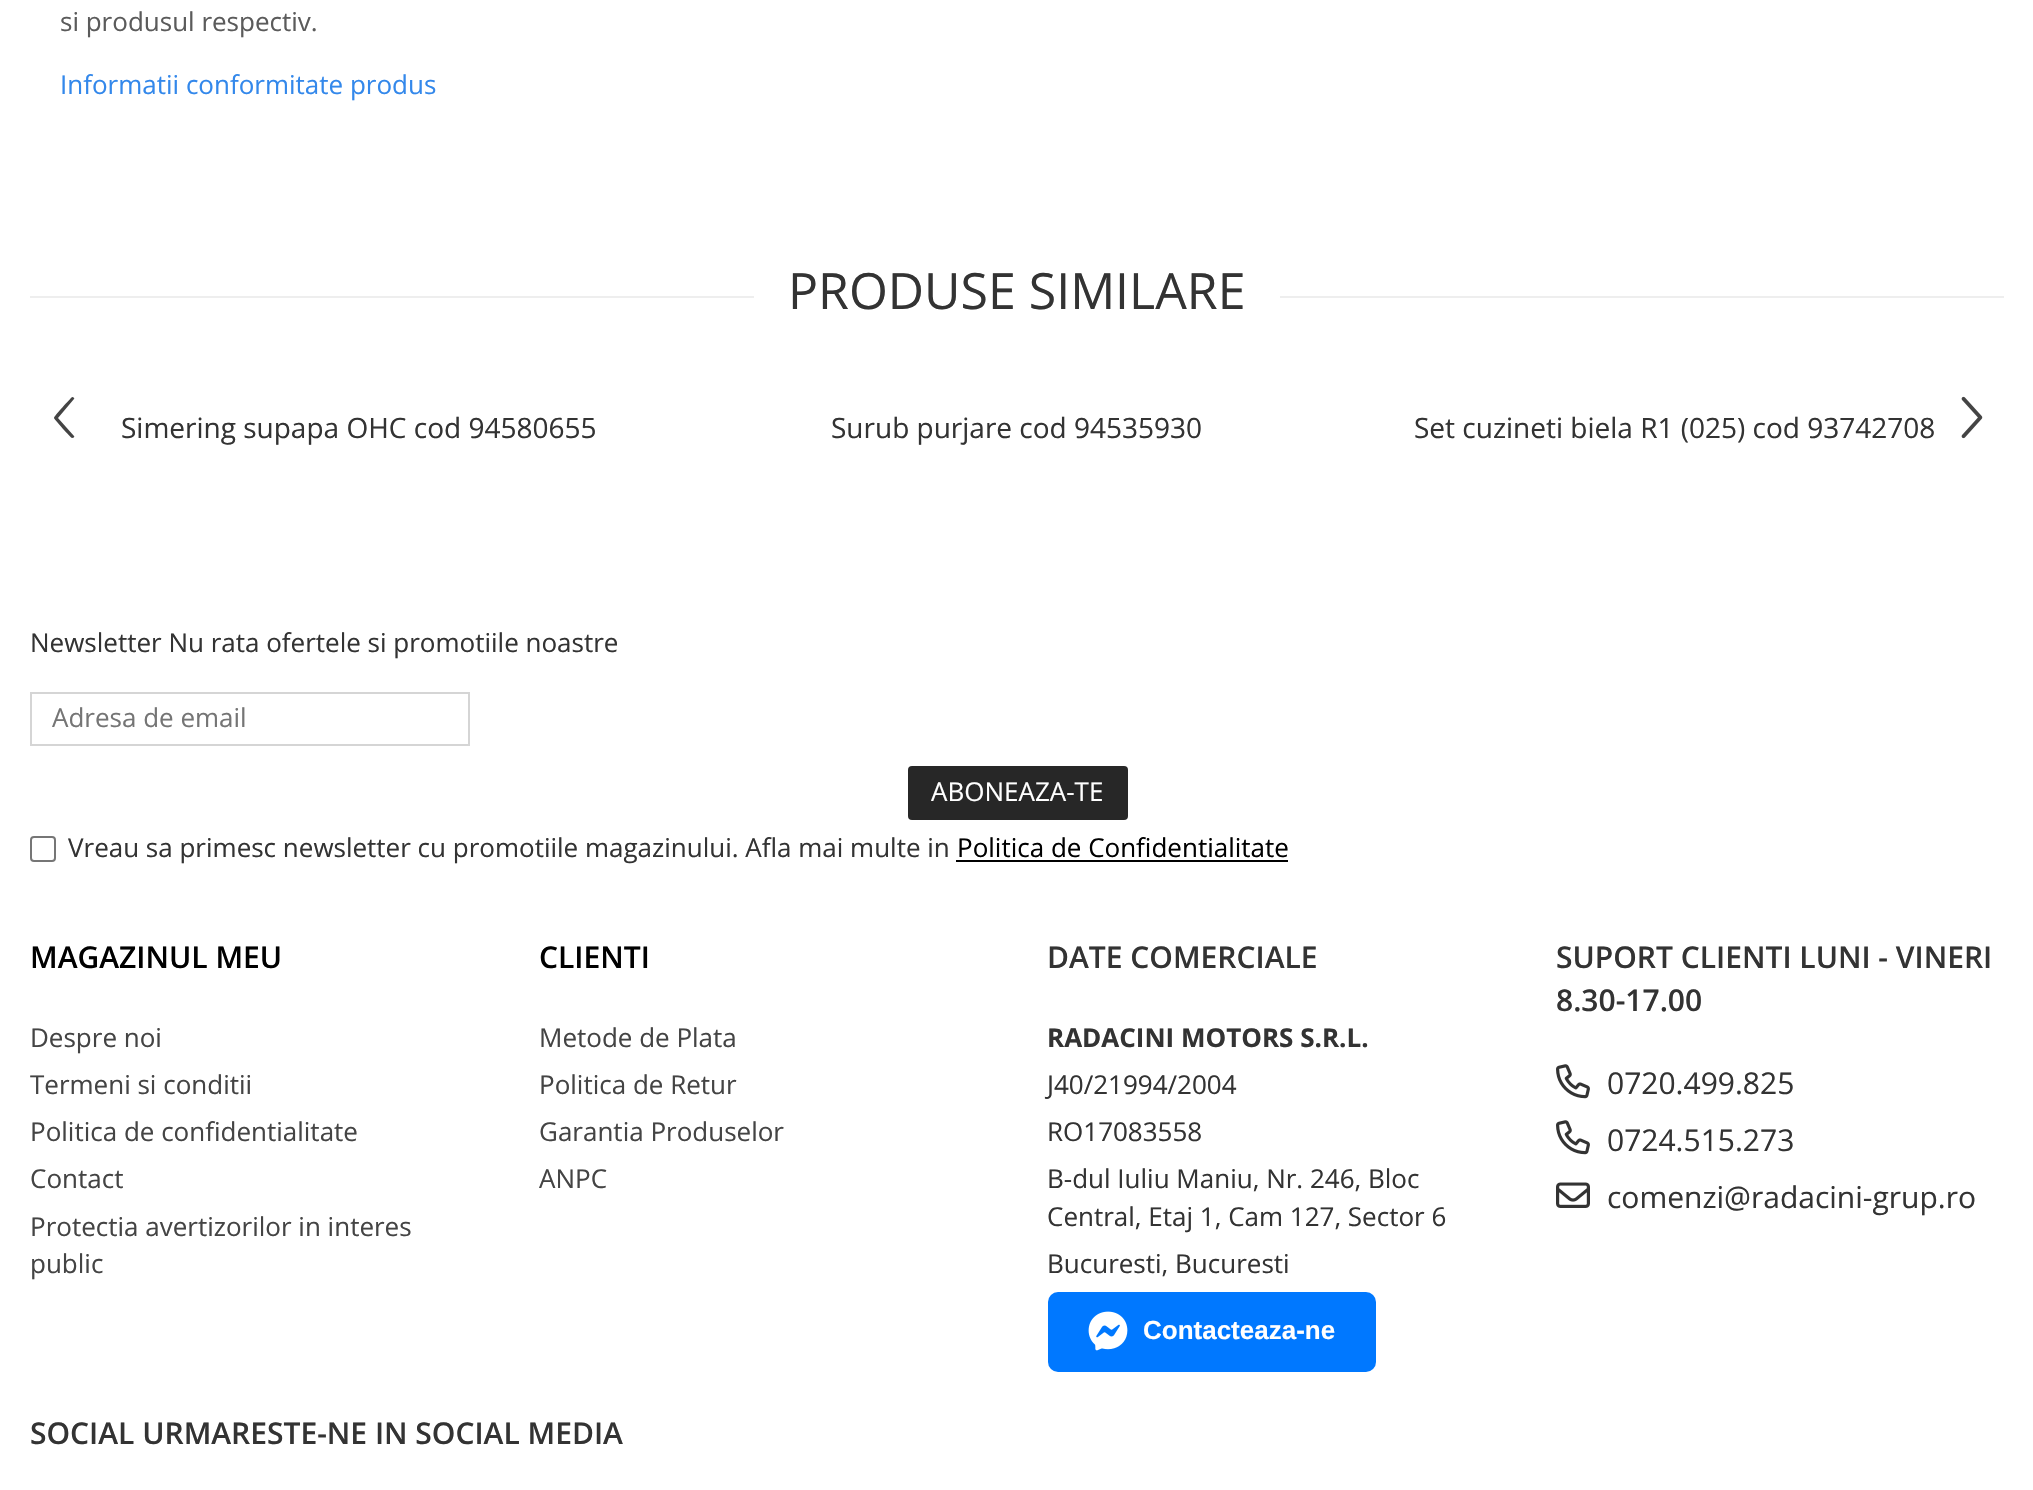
#include "include/core/SkBlurTypes.h"
#include "include/core/SkCanvas.h"
#include "include/core/SkData.h"
#include "include/core/SkFont.h"
#include "include/core/SkFontMgr.h"
#include "include/core/SkImage.h"
#include "include/core/SkMaskFilter.h"
#include "include/core/SkPaint.h"
#include "include/core/SkPathBuilder.h"
#include "include/core/SkTextBlob.h"
#include "include/effects/SkDashPathEffect.h"
#include "include/effects/SkGradientShader.h"
#include "include/utils/SkParsePath.h"

extern sk_sp<SkFontMgr> fontMgr;

void draw(SkCanvas* canvas) {
  SkPaint p;
  p.setAntiAlias(true);
  canvas->clear(SK_ColorWHITE);
  p.setColor(SkColorSetRGB(238, 238, 238));
  canvas->drawRect(SkRect::MakeLTRB(30, 296, 2004, 298), p);
  p.setColor(SK_ColorWHITE);
  canvas->drawRect(SkRect::MakeLTRB(754, 296, 1280, 298), p);
  p.setColor(SkColorSetRGB(68, 68, 68));
  canvas->drawPath(SkPathBuilder().moveTo(58, 418).lineTo(74, 399).cubicTo(75, 398, 73, 397, 72, 397).cubicTo(71, 398, 54, 416, 54, 418).cubicTo(54, 419, 71, 438, 72, 438).cubicTo(73, 438, 75, 437, 74, 436).close().detach(), p);
  canvas->drawImageRect(SkImages::DeferredFromEncodedData(SkData::MakeFromFileName("images/1.png")), SkRect::MakeLTRB(1961, 396, 1983, 439), SkSamplingOptions());
  p.setStyle(SkPaint::kStroke_Style);
  p.setStrokeWidth(2);
  p.setColor(SkColorSetRGB(213, 213, 213));
  canvas->drawRect(SkRect::MakeLTRB(31, 693, 469, 745), p);
  p.setStyle(SkPaint::kFill_Style);
  p.setColor(SkColorSetRGB(39, 39, 39));
  canvas->drawRoundRect(SkRect::MakeLTRB(908, 766, 1128, 820), 4, 4, p);
  p.setStyle(SkPaint::kStroke_Style);
  p.setColor(SkColorSetRGB(118, 118, 118));
  canvas->drawRoundRect(SkRect::MakeLTRB(31, 837, 55, 861), 3, 3, p);
  p.setStyle(SkPaint::kFill_Style);
  p.setColor(SK_ColorBLACK);
  canvas->drawRect(SkRect::MakeLTRB(956, 860, 1288, 862), p);
  p.setColor(SkColorSetRGB(0, 120, 255));
  canvas->drawRoundRect(SkRect::MakeLTRB(1048, 1292, 1376, 1372), 10, 10, p);
  canvas->drawImageRect(SkImages::DeferredFromEncodedData(SkData::MakeFromFileName("images/2.png")), SkRect::MakeLTRB(1088, 1311, 1128, 1351), SkSamplingOptions());
  canvas->drawImageRect(SkImages::DeferredFromEncodedData(SkData::MakeFromFileName("images/3.png")), SkRect::MakeLTRB(1556, 1064, 1590, 1099), SkSamplingOptions());
  canvas->drawImageRect(SkImages::DeferredFromEncodedData(SkData::MakeFromFileName("images/3.png")), SkRect::MakeLTRB(1556, 1120, 1590, 1155), SkSamplingOptions());
  canvas->drawImageRect(SkImages::DeferredFromEncodedData(SkData::MakeFromFileName("images/4.png")), SkRect::MakeLTRB(1556, 1182, 1590, 1208), SkSamplingOptions());
  SkFont font1(fontMgr->matchFamilyStyle("Open Sans", SkFontStyle::Normal()), 26);
  font1.setSubpixel(true);
  p.setColor(SkColorSetRGB(91, 91, 91));
  canvas->drawString("si produsul respectiv.", 60, 31, font1, p);
  p.setColor(SkColorSetRGB(51, 136, 235));
  canvas->drawString("Informatii conformitate produs", 60, 94, font1, p);
  SkFont font2(fontMgr->matchFamilyStyle("Open Sans", SkFontStyle::Normal()), 50);
  font2.setSubpixel(true);
  p.setColor(SkColorSetRGB(51, 51, 51));
  canvas->drawString("PRODUSE SIMILARE", 788, 309, font2, p);
  SkFont font3(fontMgr->matchFamilyStyle("Open Sans", SkFontStyle::Normal()), 28);
  font3.setSubpixel(true);
  canvas->drawString("Simering supapa OHC cod 94580655", 121, 438, font3, p);
  canvas->drawString("Surub purjare cod 94535930", 831, 438, font3, p);
  canvas->drawString("Set cuzineti biela R1 (025) cod 93742708", 1414, 438, font3, p);
  canvas->drawString("Newsletter Nu rata ofertele si promotiile noastre", 30, 652, font1, p);
  p.setColor(SkColorSetRGB(117, 117, 117));
  canvas->drawString("Adresa de email", 52, 727, font1, p);
  p.setColor(SK_ColorWHITE);
  canvas->drawString("ABONEAZA-TE", 931, 801, font1, p);
  p.setColor(SkColorSetRGB(51, 51, 51));
  canvas->drawString("Vreau sa primesc newsletter cu promotiile magazinului. Afla mai multe in", 68, 857, font1, p);
  p.setColor(SK_ColorBLACK);
  canvas->drawString("Politica de Confidentialitate", 957, 857, font1, p);
  SkFont font4(fontMgr->matchFamilyStyle("Open Sans", SkFontStyle(600, SkFontStyle::kNormal_Width, SkFontStyle::kUpright_Slant)), 30);
  font4.setSubpixel(true);
  canvas->drawString("MAGAZINUL MEU", 30, 968, font4, p);
  p.setColor(SkColorSetRGB(68, 68, 68));
  canvas->drawString("Despre noi", 30, 1047, font1, p);
  canvas->drawString("Termeni si conditii", 30, 1094, font1, p);
  canvas->drawString("Politica de confidentialitate", 30, 1141, font1, p);
  canvas->drawString("Contact", 30, 1188, font1, p);
  canvas->drawString("Protectia avertizorilor in interes", 30, 1236, font1, p);
  canvas->drawString("public", 30, 1273, font1, p);
  p.setColor(SK_ColorBLACK);
  canvas->drawString("CLIENTI", 539, 968, font4, p);
  p.setColor(SkColorSetRGB(68, 68, 68));
  canvas->drawString("Metode de Plata", 539, 1047, font1, p);
  canvas->drawString("Politica de Retur", 539, 1094, font1, p);
  canvas->drawString("Garantia Produselor", 539, 1141, font1, p);
  canvas->drawString("ANPC", 539, 1188, font1, p);
  p.setColor(SkColorSetRGB(51, 51, 51));
  canvas->drawString("DATE COMERCIALE", 1047, 968, font4, p);
  SkFont font5(fontMgr->matchFamilyStyle("Open Sans", SkFontStyle::Bold()), 26);
  font5.setSubpixel(true);
  canvas->drawString("RADACINI MOTORS S.R.L.", 1047, 1047, font5, p);
  canvas->drawString("J40/21994/2004", 1047, 1094, font1, p);
  canvas->drawString("RO17083558", 1047, 1141, font1, p);
  canvas->drawString("B-dul Iuliu Maniu, Nr. 246, Bloc", 1047, 1188, font1, p);
  canvas->drawString("Central, Etaj 1, Cam 127, Sector 6", 1047, 1226, font1, p);
  canvas->drawString("Bucuresti, Bucuresti", 1047, 1273, font1, p);
  SkFont font6(fontMgr->matchFamilyStyle("Liberation Sans", SkFontStyle::Bold()), 26);
  font6.setSubpixel(true);
  p.setColor(SK_ColorWHITE);
  canvas->drawString("Contacteaza-ne", 1143, 1339, font6, p);
  p.setColor(SkColorSetRGB(51, 51, 51));
  canvas->drawString("SUPORT CLIENTI LUNI - VINERI", 1556, 968, font4, p);
  canvas->drawString("8.30-17.00", 1556, 1011, font4, p);
  SkFont font7(fontMgr->matchFamilyStyle("Open Sans", SkFontStyle::Normal()), 30);
  font7.setSubpixel(true);
  canvas->drawString("0720.499.825", 1607, 1094, font7, p);
  canvas->drawString("0724.515.273", 1607, 1151, font7, p);
  canvas->drawString("comenzi@radacini-grup.ro", 1607, 1208, font7, p);
  canvas->drawString("SOCIAL URMARESTE-NE IN SOCIAL MEDIA", 30, 1444, font4, p);
}
